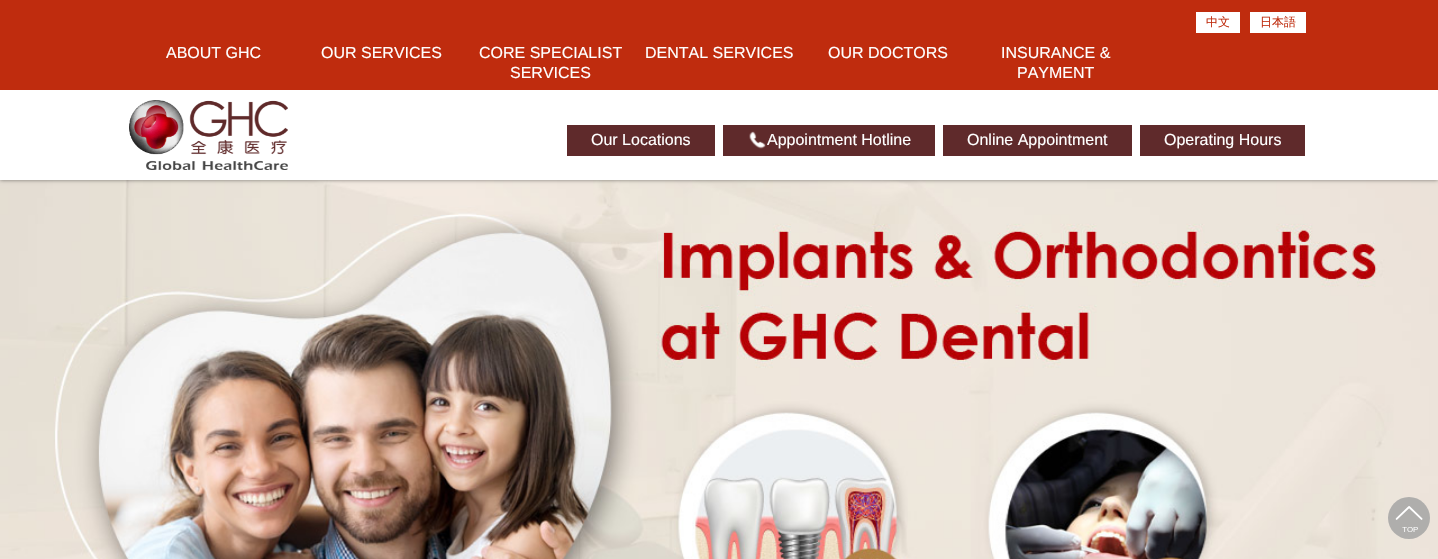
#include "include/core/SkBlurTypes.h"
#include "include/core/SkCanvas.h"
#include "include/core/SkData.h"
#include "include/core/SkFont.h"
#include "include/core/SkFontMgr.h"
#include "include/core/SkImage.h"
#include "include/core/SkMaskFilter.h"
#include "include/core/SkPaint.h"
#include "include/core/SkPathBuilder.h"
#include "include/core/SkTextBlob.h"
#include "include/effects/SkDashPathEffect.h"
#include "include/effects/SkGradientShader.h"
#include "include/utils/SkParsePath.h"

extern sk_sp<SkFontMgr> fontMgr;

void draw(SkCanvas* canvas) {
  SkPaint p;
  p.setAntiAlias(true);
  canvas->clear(SK_ColorWHITE);
  canvas->drawImageRect(SkImages::DeferredFromEncodedData(SkData::MakeFromFileName("images/3.png")), SkRect::MakeLTRB(0, 180, 1438, 559), SkSamplingOptions());
  p.setColor(SkColorSetARGB(128, 0, 0, 0));
  p.setMaskFilter(SkMaskFilter::MakeBlur(kNormal_SkBlurStyle, 2));
  canvas->drawRect(SkRect::MakeLTRB(0, 0, 1438, 180), p);
  p.setMaskFilter(nullptr);
  p.setColor(SK_ColorWHITE);
  canvas->drawRect(SkRect::MakeLTRB(0, 90, 1438, 180), p);
  p.setColor(SkColorSetRGB(191, 44, 14));
  canvas->drawRect(SkRect::MakeLTRB(0, 0, 1438, 90), p);
  p.setColor(SK_ColorWHITE);
  canvas->drawRect(SkRect::MakeLTRB(1196, 12, 1240, 33), p);
  canvas->drawRect(SkRect::MakeLTRB(1250, 12, 1306, 33), p);
  p.setColor(SkColorSetRGB(95, 42, 43));
  canvas->drawRect(SkRect::MakeLTRB(567, 125, 715, 156), p);
  canvas->drawRect(SkRect::MakeLTRB(723, 125, 935, 156), p);
  canvas->drawImageRect(SkImages::DeferredFromEncodedData(SkData::MakeFromFileName("images/1.png")), SkRect::MakeLTRB(749, 131, 766, 149), SkSamplingOptions());
  canvas->drawRect(SkRect::MakeLTRB(943, 125, 1132, 156), p);
  canvas->drawRect(SkRect::MakeLTRB(1140, 125, 1305, 156), p);
  canvas->drawImageRect(SkImages::DeferredFromEncodedData(SkData::MakeFromFileName("images/2.png")), SkRect::MakeLTRB(129, 100, 288, 170), SkSamplingOptions());
  p.setColor(SkColorSetRGB(175, 174, 172));
  canvas->drawCircle(1409, 518, 21, p);
  canvas->drawImageRect(SkImages::DeferredFromEncodedData(SkData::MakeFromFileName("images/4.png")), SkRect::MakeLTRB(1395, 506, 1423, 532), SkSamplingOptions());
  SkFont font1(fontMgr->matchFamilyStyle("WenQuanYi Zen Hei", SkFontStyle(500, SkFontStyle::kNormal_Width, SkFontStyle::kUpright_Slant)), 12);
  font1.setSubpixel(true);
  p.setColor(SkColorSetRGB(191, 44, 14));
  canvas->drawString("中文", 1206, 26, font1, p);
  canvas->drawString("日本語", 1260, 26, font1, p);
  SkFont font2(fontMgr->matchFamilyStyle("Liberation Sans", SkFontStyle::Normal()), 16);
  font2.setSubpixel(true);
  p.setColor(SK_ColorWHITE);
  canvas->drawString("ABOUT GHC", 166, 58, font2, p);
  canvas->drawString("OUR SERVICES", 321, 58, font2, p);
  canvas->drawString("CORE SPECIALIST", 479, 58, font2, p);
  canvas->drawString("SERVICES", 510, 78, font2, p);
  canvas->drawString("DENTAL SERVICES", 645, 58, font2, p);
  canvas->drawString("OUR DOCTORS", 828, 58, font2, p);
  canvas->drawString("INSURANCE &", 1001, 58, font2, p);
  canvas->drawString("PAYMENT", 1017, 78, font2, p);
  canvas->drawString("Our Locations", 591, 145, font2, p);
  canvas->drawString("Appointment Hotline", 767, 145, font2, p);
  canvas->drawString("Online Appointment", 967, 145, font2, p);
  canvas->drawString("Operating Hours", 1164, 145, font2, p);
}
